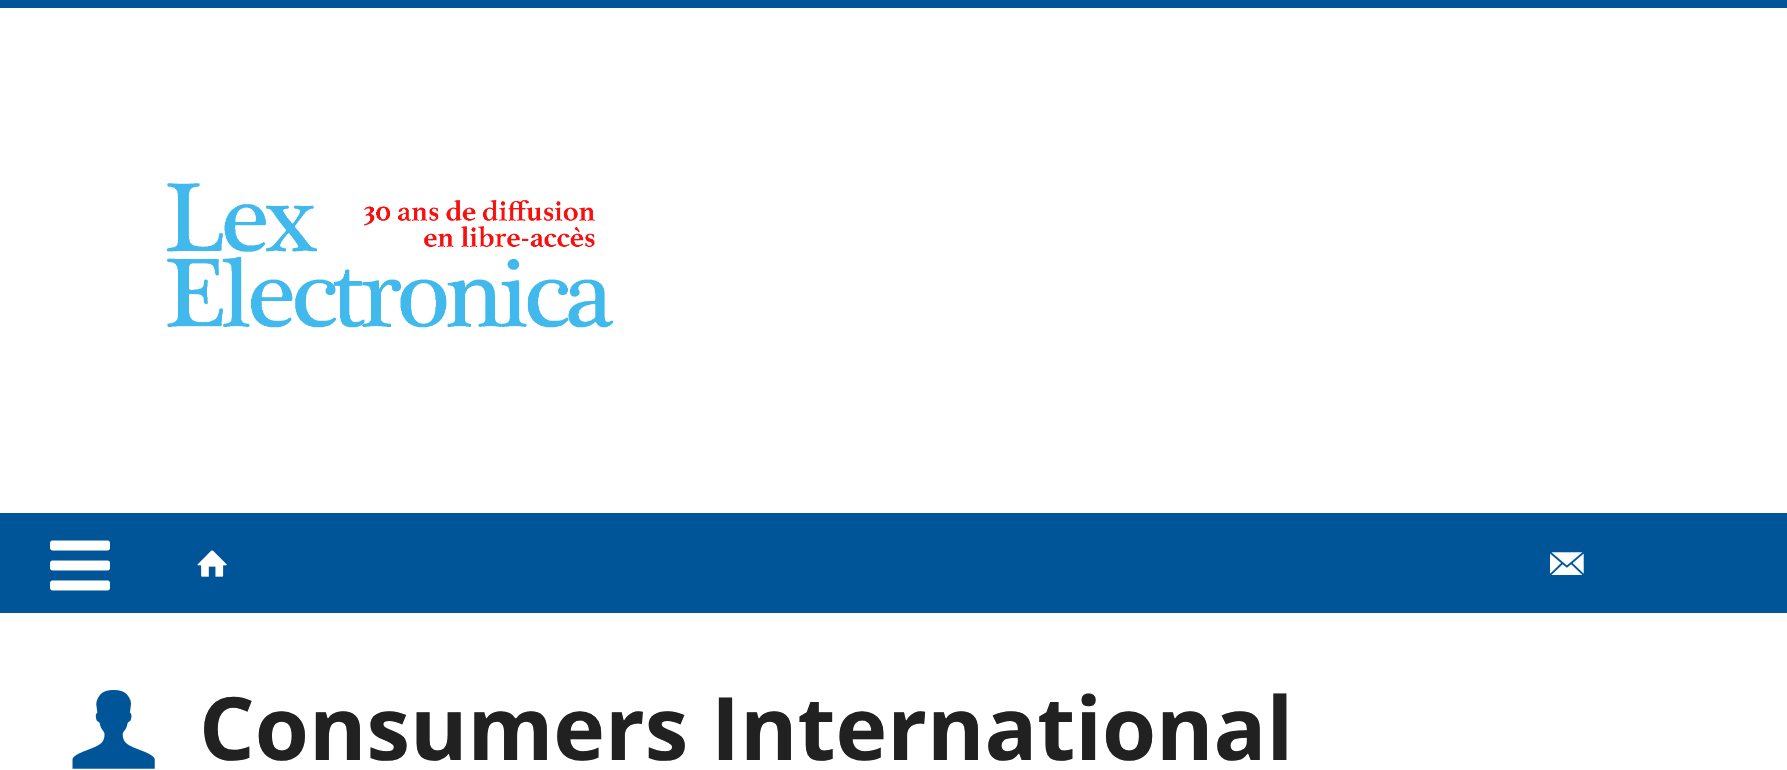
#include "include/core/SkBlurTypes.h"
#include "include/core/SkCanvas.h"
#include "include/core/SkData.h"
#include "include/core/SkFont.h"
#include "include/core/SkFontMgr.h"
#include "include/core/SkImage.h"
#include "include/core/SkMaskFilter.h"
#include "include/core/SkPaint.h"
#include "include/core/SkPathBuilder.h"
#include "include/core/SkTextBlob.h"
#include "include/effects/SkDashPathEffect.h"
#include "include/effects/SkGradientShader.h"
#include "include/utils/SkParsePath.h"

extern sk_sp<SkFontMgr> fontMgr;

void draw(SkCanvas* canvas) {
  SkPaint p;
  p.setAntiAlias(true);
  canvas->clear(SK_ColorWHITE);
  p.setColor(SkColorSetRGB(0, 85, 153));
  canvas->drawRect(SkRect::MakeLTRB(0, 0, 1787, 8), p);
  canvas->drawImageRect(SkImages::DeferredFromEncodedData(SkData::MakeFromFileName("images/1.png")), SkRect::MakeLTRB(166, 183, 614, 329), SkSamplingOptions());
  canvas->drawRect(SkRect::MakeLTRB(0, 513, 1787, 613), p);
  canvas->drawImageRect(SkImages::DeferredFromEncodedData(SkData::MakeFromFileName("images/2.png")), SkRect::MakeLTRB(50, 540, 110, 591), SkSamplingOptions());
  canvas->drawImageRect(SkImages::DeferredFromEncodedData(SkData::MakeFromFileName("images/3.png")), SkRect::MakeLTRB(197, 550, 227, 577), SkSamplingOptions());
  canvas->drawImageRect(SkImages::DeferredFromEncodedData(SkData::MakeFromFileName("images/4.png")), SkRect::MakeLTRB(1550, 552, 1584, 575), SkSamplingOptions());
  canvas->drawImageRect(SkImages::DeferredFromEncodedData(SkData::MakeFromFileName("images/5.png")), SkRect::MakeLTRB(72, 690, 155, 769), SkSamplingOptions());
  SkFont font1(fontMgr->matchFamilyStyle("Open Sans", SkFontStyle::Bold()), 87.5f);
  font1.setSubpixel(true);
  p.setColor(SkColorSetRGB(33, 33, 33));
  canvas->drawString("Consumers International", 199, 760, font1, p);
}
